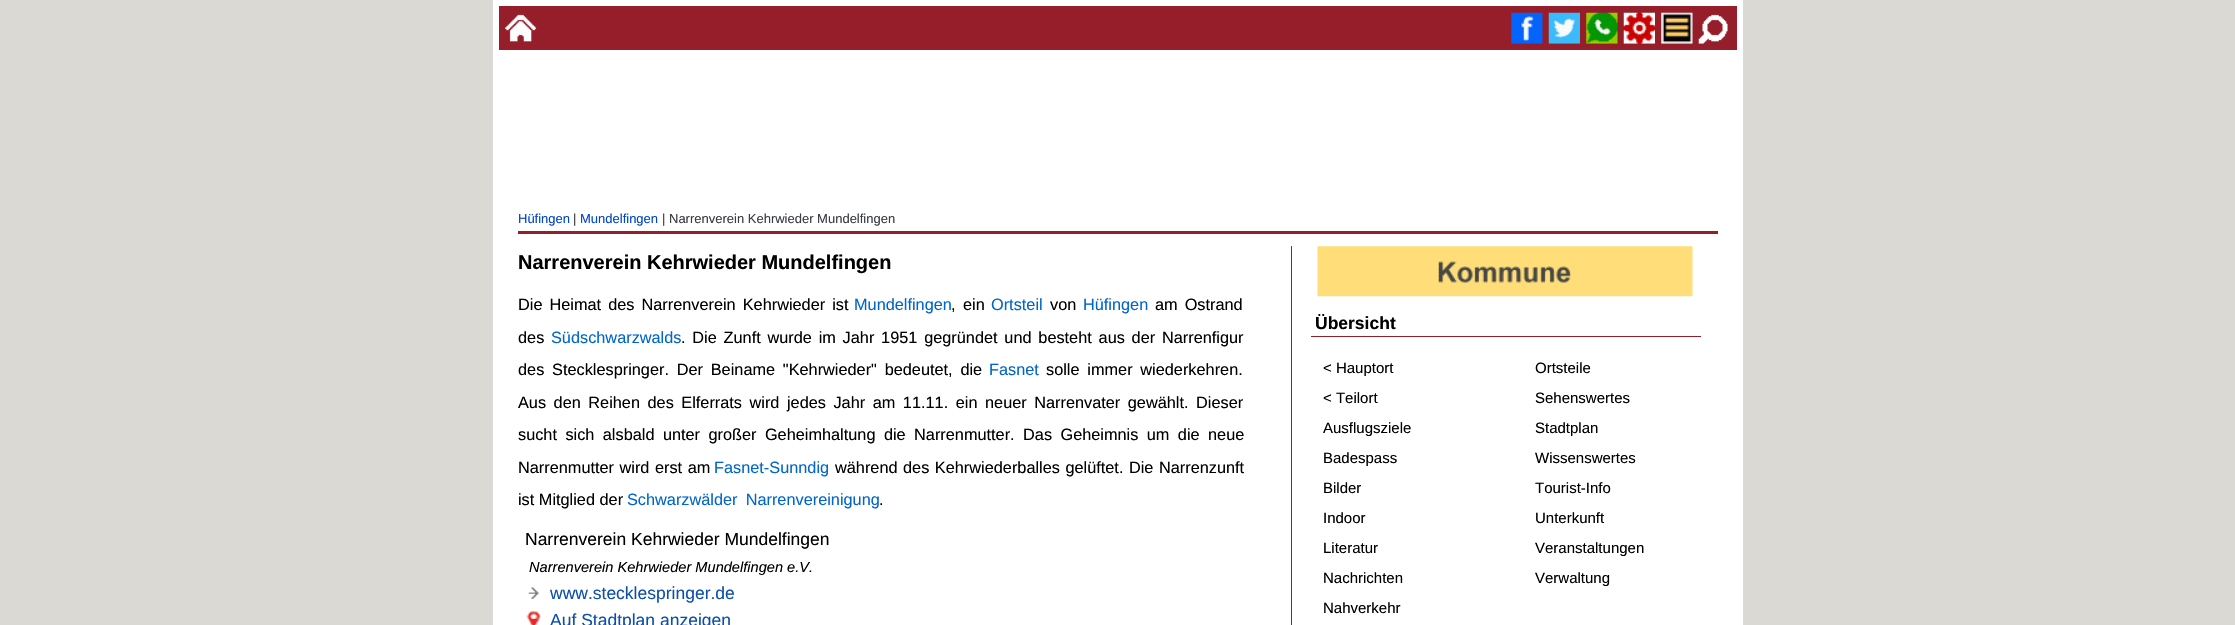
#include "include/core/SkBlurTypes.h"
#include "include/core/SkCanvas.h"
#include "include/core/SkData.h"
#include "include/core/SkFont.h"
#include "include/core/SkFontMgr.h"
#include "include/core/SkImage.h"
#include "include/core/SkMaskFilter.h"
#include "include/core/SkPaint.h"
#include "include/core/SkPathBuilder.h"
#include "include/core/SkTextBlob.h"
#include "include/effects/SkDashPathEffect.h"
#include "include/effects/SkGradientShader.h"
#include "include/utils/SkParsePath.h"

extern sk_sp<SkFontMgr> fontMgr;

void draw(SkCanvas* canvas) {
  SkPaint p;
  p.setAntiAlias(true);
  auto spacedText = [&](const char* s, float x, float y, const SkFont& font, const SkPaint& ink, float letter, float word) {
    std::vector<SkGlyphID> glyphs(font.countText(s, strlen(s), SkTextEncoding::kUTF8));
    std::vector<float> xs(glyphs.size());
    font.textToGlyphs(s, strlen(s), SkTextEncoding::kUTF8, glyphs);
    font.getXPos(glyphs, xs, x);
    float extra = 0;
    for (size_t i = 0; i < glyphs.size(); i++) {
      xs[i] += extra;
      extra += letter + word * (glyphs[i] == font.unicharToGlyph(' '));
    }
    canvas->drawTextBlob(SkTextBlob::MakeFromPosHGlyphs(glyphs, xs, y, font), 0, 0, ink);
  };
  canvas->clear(SkColorSetRGB(218, 217, 212));
  p.setColor(SkColorSetRGB(150, 29, 42));
  canvas->drawRect(SkRect::MakeLTRB(496, 3, 1740, 53), p);
  p.setStyle(SkPaint::kStroke_Style);
  p.setStrokeWidth(6);
  p.setColor(SK_ColorWHITE);
  canvas->drawRect(SkRect::MakeLTRB(496, 3, 1740, 53), p);
  canvas->drawImageRect(SkImages::DeferredFromEncodedData(SkData::MakeFromFileName("images/1.png")), SkRect::MakeLTRB(505, 14, 537, 42), SkSamplingOptions());
  canvas->drawImageRect(SkImages::DeferredFromEncodedData(SkData::MakeFromFileName("images/2.png")), SkRect::MakeLTRB(1511, 12, 1543, 44), SkSamplingOptions());
  canvas->drawImageRect(SkImages::DeferredFromEncodedData(SkData::MakeFromFileName("images/3.png")), SkRect::MakeLTRB(1548, 12, 1580, 44), SkSamplingOptions());
  canvas->drawImageRect(SkImages::DeferredFromEncodedData(SkData::MakeFromFileName("images/4.png")), SkRect::MakeLTRB(1586, 12, 1618, 44), SkSamplingOptions());
  canvas->drawImageRect(SkImages::DeferredFromEncodedData(SkData::MakeFromFileName("images/5.png")), SkRect::MakeLTRB(1623, 12, 1655, 44), SkSamplingOptions());
  canvas->drawImageRect(SkImages::DeferredFromEncodedData(SkData::MakeFromFileName("images/6.png")), SkRect::MakeLTRB(1661, 12, 1693, 44), SkSamplingOptions());
  canvas->drawImageRect(SkImages::DeferredFromEncodedData(SkData::MakeFromFileName("images/7.png")), SkRect::MakeLTRB(1698, 14, 1728, 44), SkSamplingOptions());
  p.setStyle(SkPaint::kFill_Style);
  canvas->drawRect(SkRect::MakeLTRB(493, 56, 1743, 625), p);
  p.setColor(SkColorSetRGB(150, 29, 42));
  canvas->drawRect(SkRect::MakeLTRB(518, 231, 1718, 234), p);
  canvas->drawImageRect(SkImages::DeferredFromEncodedData(SkData::MakeFromFileName("images/8.png")), SkRect::MakeLTRB(528, 587, 539, 599), SkSamplingOptions());
  canvas->drawImageRect(SkImages::DeferredFromEncodedData(SkData::MakeFromFileName("images/9.png")), SkRect::MakeLTRB(526, 611, 542, 625), SkSamplingOptions());
  canvas->drawRect(SkRect::MakeLTRB(1291, 246, 1292, 625), p);
  canvas->drawImageRect(SkImages::DeferredFromEncodedData(SkData::MakeFromFileName("images/10.png")), SkRect::MakeLTRB(1317, 246, 1693, 297), SkSamplingOptions());
  canvas->drawRect(SkRect::MakeLTRB(1311, 336, 1701, 337), p);
  SkFont font1(fontMgr->matchFamilyStyle("Liberation Sans", SkFontStyle::Normal()), 13);
  font1.setSubpixel(true);
  p.setColor(SkColorSetRGB(0, 68, 204));
  canvas->drawString("Hüfingen", 518, 223, font1, p);
  p.setColor(SkColorSetRGB(57, 60, 66));
  canvas->drawString("|", 573, 223, font1, p);
  p.setColor(SkColorSetRGB(0, 68, 204));
  canvas->drawString("Mundelfingen", 580, 223, font1, p);
  p.setColor(SkColorSetRGB(57, 60, 66));
  canvas->drawString("| Narrenverein Kehrwieder Mundelfingen", 662, 223, font1, p);
  SkFont font2(fontMgr->matchFamilyStyle("Liberation Sans", SkFontStyle::Bold()), 20);
  font2.setSubpixel(true);
  p.setColor(SK_ColorBLACK);
  canvas->drawString("Narrenverein Kehrwieder Mundelfingen", 518, 269, font2, p);
  SkFont font3(fontMgr->matchFamilyStyle("Liberation Sans", SkFontStyle::Normal()), 16.3f);
  font3.setSubpixel(true);
  spacedText("Die Heimat des Narrenverein Kehrwieder ist", 518, 310, font3, p, 0, 2.5f);
  p.setColor(SkColorSetRGB(0, 102, 204));
  canvas->drawString("Mundelfingen", 854, 310, font3, p);
  p.setColor(SK_ColorBLACK);
  canvas->drawString(",", 951, 310, font3, p);
  canvas->drawString("ein", 963, 310, font3, p);
  p.setColor(SkColorSetRGB(0, 102, 204));
  canvas->drawString("Ortsteil", 991, 310, font3, p);
  p.setColor(SK_ColorBLACK);
  canvas->drawString("von", 1050, 310, font3, p);
  p.setColor(SkColorSetRGB(0, 102, 204));
  canvas->drawString("Hüfingen", 1083, 310, font3, p);
  p.setColor(SK_ColorBLACK);
  spacedText("am Ostrand", 1155, 310, font3, p, 0, 2.5f);
  canvas->drawString("des", 518, 343, font3, p);
  p.setColor(SkColorSetRGB(0, 102, 204));
  canvas->drawString("Südschwarzwalds", 551, 343, font3, p);
  p.setColor(SK_ColorBLACK);
  spacedText(". Die Zunft wurde im Jahr 1951 gegründet und besteht aus der Narrenfigur", 681, 343, font3, p, 0, 2.25f);
  spacedText("des Stecklespringer. Der Beiname \"Kehrwieder\" bedeutet, die", 518, 375, font3, p, 0, 3.25f);
  p.setColor(SkColorSetRGB(0, 102, 204));
  canvas->drawString("Fasnet", 989, 375, font3, p);
  p.setColor(SK_ColorBLACK);
  spacedText("solle immer wiederkehren.", 1046, 375, font3, p, 0, 3.25f);
  spacedText("Aus den Reihen des Elferrats wird jedes Jahr am 11.11. ein neuer Narrenvater gewählt. Dieser", 518, 408, font3, p, 0, 3);
  spacedText("sucht sich alsbald unter großer Geheimhaltung die Narrenmutter. Das Geheimnis um die neue", 518, 440, font3, p, 0, 3.9f);
  spacedText("Narrenmutter wird erst am", 518, 473, font3, p, 0, 1);
  p.setColor(SkColorSetRGB(0, 102, 204));
  canvas->drawString("Fasnet-Sunndig", 714, 473, font3, p);
  p.setColor(SK_ColorBLACK);
  spacedText("während des Kehrwiederballes gelüftet. Die Narrenzunft", 835, 473, font3, p, 0, 1);
  canvas->drawString("ist Mitglied der", 518, 505, font3, p);
  p.setColor(SkColorSetRGB(0, 102, 204));
  canvas->drawString("Schwarzwälder Narrenvereinigung", 627, 505, font3, p);
  p.setColor(SK_ColorBLACK);
  canvas->drawString(".", 879, 505, font3, p);
  SkFont font4(fontMgr->matchFamilyStyle("Liberation Sans", SkFontStyle::Normal()), 17.5f);
  font4.setSubpixel(true);
  canvas->drawString("Narrenverein Kehrwieder Mundelfingen", 525, 545, font4, p);
  SkFont font5(fontMgr->matchFamilyStyle("Liberation Sans", SkFontStyle::Italic()), 14.6f);
  font5.setSubpixel(true);
  canvas->drawString("Narrenverein Kehrwieder Mundelfingen e.V.", 529, 572, font5, p);
  p.setColor(SkColorSetRGB(13, 79, 171));
  canvas->drawString("www.stecklespringer.de", 550, 599, font4, p);
  canvas->drawString("Auf Stadtplan anzeigen", 550, 626, font4, p);
  SkFont font6(fontMgr->matchFamilyStyle("Liberation Sans", SkFontStyle::Bold()), 17.5f);
  font6.setSubpixel(true);
  p.setColor(SK_ColorBLACK);
  canvas->drawString("Übersicht", 1315, 329, font6, p);
  SkFont font7(fontMgr->matchFamilyStyle("Liberation Sans", SkFontStyle::Normal()), 15);
  font7.setSubpixel(true);
  canvas->drawString("< Hauptort", 1323, 373, font7, p);
  canvas->drawString("< Teilort", 1323, 403, font7, p);
  canvas->drawString("Ausflugsziele", 1323, 433, font7, p);
  canvas->drawString("Badespass", 1323, 463, font7, p);
  canvas->drawString("Bilder", 1323, 493, font7, p);
  canvas->drawString("Indoor", 1323, 523, font7, p);
  canvas->drawString("Literatur", 1323, 553, font7, p);
  canvas->drawString("Nachrichten", 1323, 583, font7, p);
  canvas->drawString("Nahverkehr", 1323, 613, font7, p);
  canvas->drawString("Ortsteile", 1535, 373, font7, p);
  canvas->drawString("Sehenswertes", 1535, 403, font7, p);
  canvas->drawString("Stadtplan", 1535, 433, font7, p);
  canvas->drawString("Wissenswertes", 1535, 463, font7, p);
  canvas->drawString("Tourist-Info", 1535, 493, font7, p);
  canvas->drawString("Unterkunft", 1535, 523, font7, p);
  canvas->drawString("Veranstaltungen", 1535, 553, font7, p);
  canvas->drawString("Verwaltung", 1535, 583, font7, p);
}
